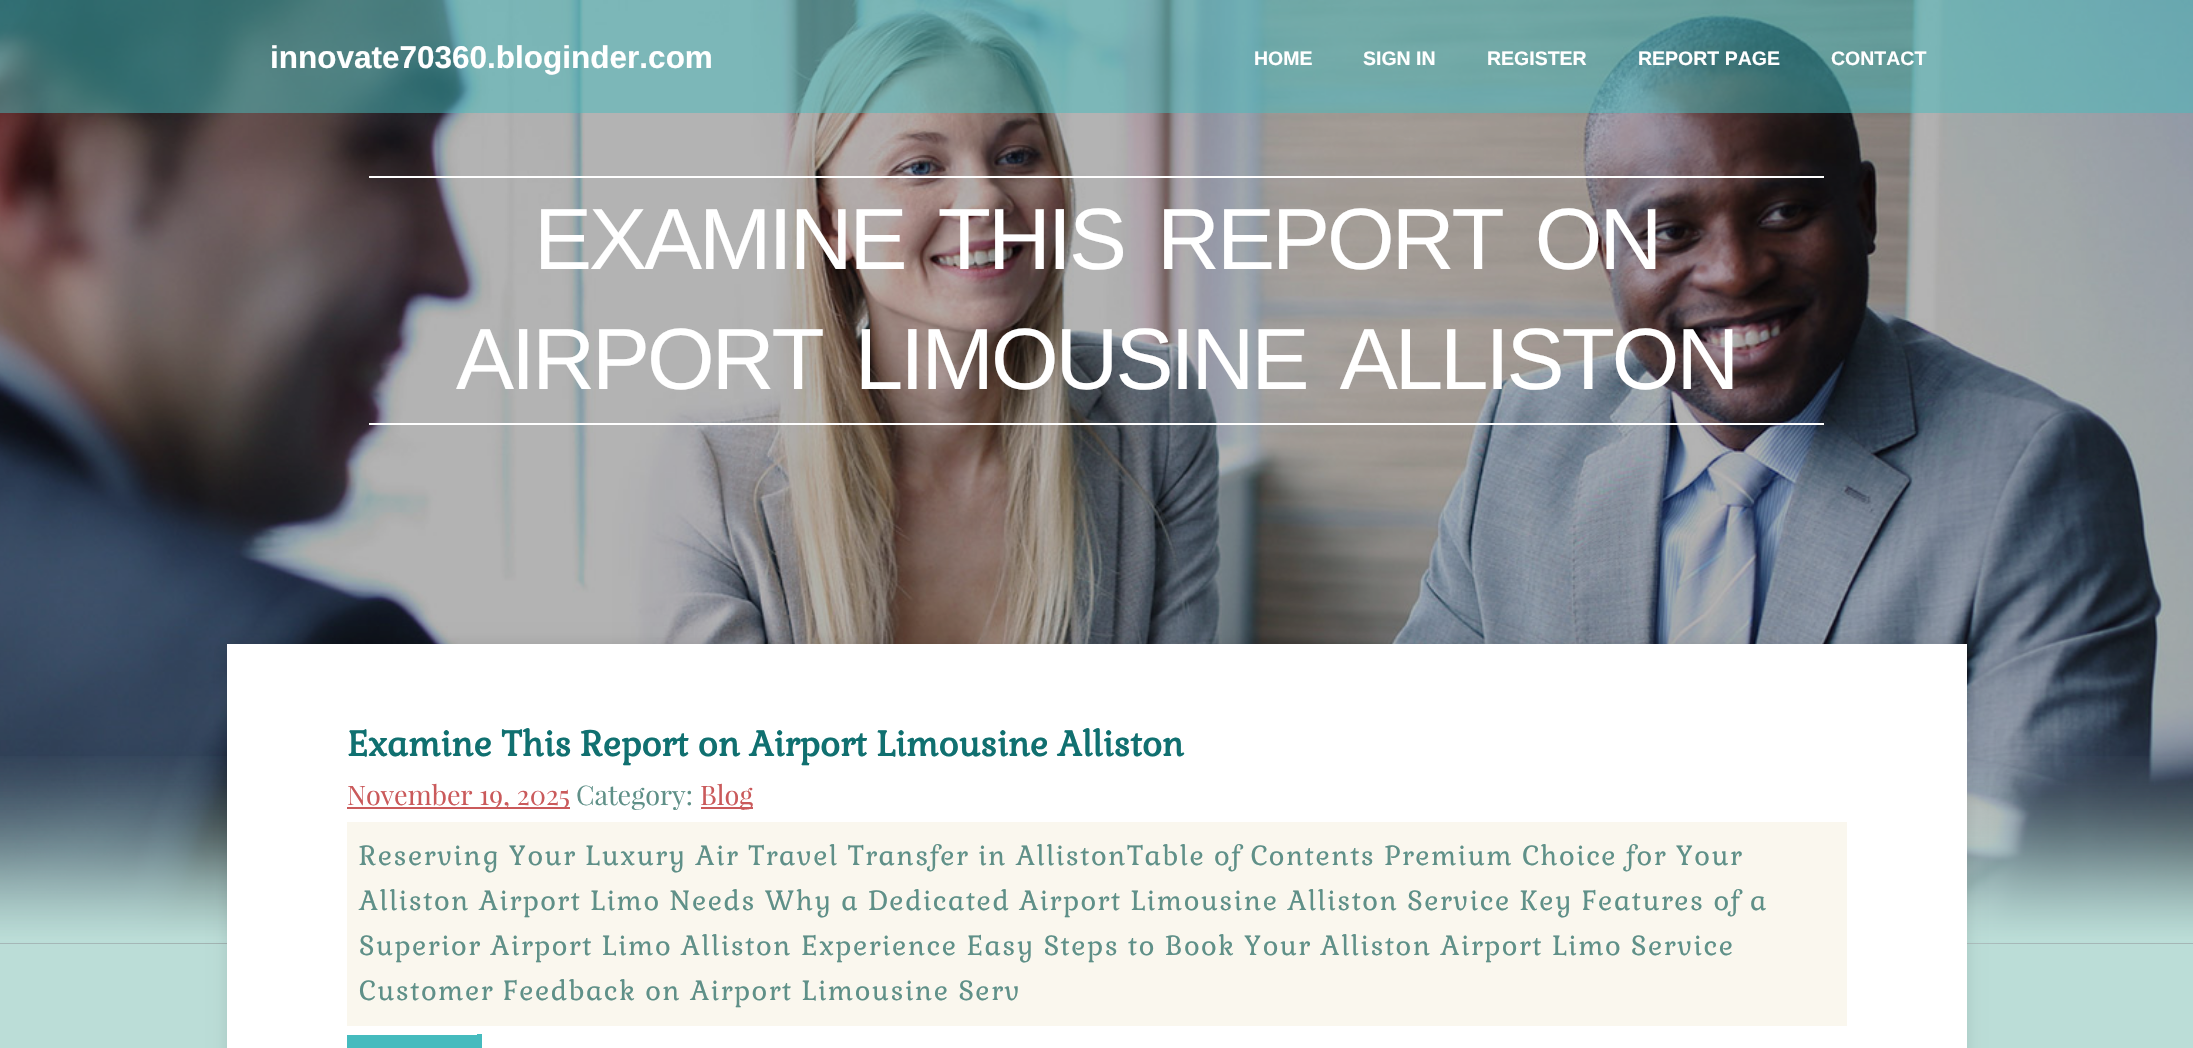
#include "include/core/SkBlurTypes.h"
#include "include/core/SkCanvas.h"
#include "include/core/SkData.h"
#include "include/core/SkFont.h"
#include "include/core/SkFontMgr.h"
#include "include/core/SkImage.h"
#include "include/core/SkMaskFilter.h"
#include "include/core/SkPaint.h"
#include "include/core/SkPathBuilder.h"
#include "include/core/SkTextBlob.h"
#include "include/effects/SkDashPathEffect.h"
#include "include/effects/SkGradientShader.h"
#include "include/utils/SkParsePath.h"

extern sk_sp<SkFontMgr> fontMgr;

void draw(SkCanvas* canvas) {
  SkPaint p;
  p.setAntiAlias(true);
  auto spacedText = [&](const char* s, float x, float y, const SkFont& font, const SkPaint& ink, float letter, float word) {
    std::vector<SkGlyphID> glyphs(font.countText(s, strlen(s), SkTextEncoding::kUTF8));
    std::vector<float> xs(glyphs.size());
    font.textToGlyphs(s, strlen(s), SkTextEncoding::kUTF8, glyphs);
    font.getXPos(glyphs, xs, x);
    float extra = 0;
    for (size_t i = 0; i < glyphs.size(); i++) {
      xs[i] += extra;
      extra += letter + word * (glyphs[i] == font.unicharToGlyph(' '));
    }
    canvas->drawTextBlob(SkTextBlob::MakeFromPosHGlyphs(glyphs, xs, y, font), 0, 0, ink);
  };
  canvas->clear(SkColorSetRGB(187, 221, 215));
  p.setColor(SkColorSetRGB(179, 179, 179));
  canvas->drawRect(SkRect::MakeLTRB(0, 943, 2193, 944), p);
  canvas->drawImageRect(SkImages::DeferredFromEncodedData(SkData::MakeFromFileName("images/1.png")), SkRect::MakeLTRB(0, 0, 2193, 944), SkSamplingOptions());
  p.setColor(SkColorSetARGB(128, 69, 187, 190));
  canvas->drawRect(SkRect::MakeLTRB(0, 0, 2193, 113), p);
  p.setColor(SK_ColorWHITE);
  canvas->drawRect(SkRect::MakeLTRB(369, 176, 1824, 178), p);
  canvas->drawRect(SkRect::MakeLTRB(369, 423, 1824, 425), p);
  canvas->drawImageRect(SkImages::DeferredFromEncodedData(SkData::MakeFromFileName("images/2.png")), SkRect::MakeLTRB(0, 756, 2193, 944), SkSamplingOptions());
  p.setColor(SkColorSetARGB(26, 0, 0, 0));
  p.setMaskFilter(SkMaskFilter::MakeBlur(kNormal_SkBlurStyle, 7.5f));
  canvas->drawRect(SkRect::MakeLTRB(227, 644, 1967, 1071), p);
  p.setMaskFilter(nullptr);
  p.setColor(SK_ColorWHITE);
  canvas->drawRect(SkRect::MakeLTRB(227, 644, 1967, 1048), p);
  p.setColor(SkColorSetRGB(202, 90, 91));
  canvas->drawRect(SkRect::MakeLTRB(347, 807, 570, 809), p);
  canvas->drawRect(SkRect::MakeLTRB(701, 807, 753, 809), p);
  p.setColor(SkColorSetRGB(250, 247, 238));
  canvas->drawRect(SkRect::MakeLTRB(347, 822, 1847, 1026), p);
  p.setColor(SkColorSetRGB(69, 187, 190));
  canvas->drawRect(SkRect::MakeLTRB(347, 1035, 477, 1048), p);
  canvas->drawRect(SkRect::MakeLTRB(477, 1034, 482, 1048), p);
  SkFont font1(fontMgr->matchFamilyStyle("Liberation Sans", SkFontStyle::Bold()), 31.5f);
  font1.setSubpixel(true);
  p.setColor(SK_ColorWHITE);
  canvas->drawString("innovate70360.bloginder.com", 270, 68, font1, p);
  SkFont font2(fontMgr->matchFamilyStyle("Liberation Sans", SkFontStyle::Bold()), 19.5f);
  font2.setSubpixel(true);
  canvas->drawString("HOME", 1254, 65, font2, p);
  canvas->drawString("SIGN IN", 1363, 65, font2, p);
  canvas->drawString("REGISTER", 1487, 65, font2, p);
  canvas->drawString("REPORT PAGE", 1638, 65, font2, p);
  canvas->drawString("CONTACT", 1831, 65, font2, p);
  SkFont font3(fontMgr->matchFamilyStyle("Liberation Sans", SkFontStyle::Normal()), 87);
  font3.setSubpixel(true);
  spacedText("EXAMINE THIS REPORT ON", 534, 269, font3, p, -3, 12);
  spacedText("AIRPORT LIMOUSINE ALLISTON", 456, 389, font3, p, -3, 12);
  SkFont font4(fontMgr->matchFamilyStyle("Gabriela", SkFontStyle::Bold()), 34.5f);
  font4.setSubpixel(true);
  p.setColor(SkColorSetRGB(16, 112, 112));
  canvas->drawString("Examine This Report on Airport Limousine Alliston", 347, 756, font4, p);
  SkFont font5(fontMgr->matchFamilyStyle("Playfair Display", SkFontStyle::Normal()), 27);
  font5.setSubpixel(true);
  p.setColor(SkColorSetRGB(202, 90, 91));
  canvas->drawString("November 19, 2025", 347, 805, font5, p);
  p.setColor(SkColorSetRGB(95, 144, 136));
  canvas->drawString("Category:", 576, 805, font5, p);
  p.setColor(SkColorSetRGB(202, 90, 91));
  canvas->drawString("Blog", 700, 805, font5, p);
  SkFont font6(fontMgr->matchFamilyStyle("Gabriela", SkFontStyle::Normal()), 27);
  font6.setSubpixel(true);
  p.setColor(SkColorSetRGB(95, 144, 136));
  spacedText("Reserving Your Luxury Air Travel Transfer in AllistonTable of Contents Premium Choice for Your", 359, 865, font6, p, 1.5f, 0);
  spacedText("Alliston Airport Limo Needs Why a Dedicated Airport Limousine Alliston Service Key Features of a", 359, 910, font6, p, 1.5f, 0);
  spacedText("Superior Airport Limo Alliston Experience Easy Steps to Book Your Alliston Airport Limo Service", 359, 955, font6, p, 1.5f, 0);
  spacedText("Customer Feedback on Airport Limousine Serv", 359, 1000, font6, p, 1.5f, 0);
}
